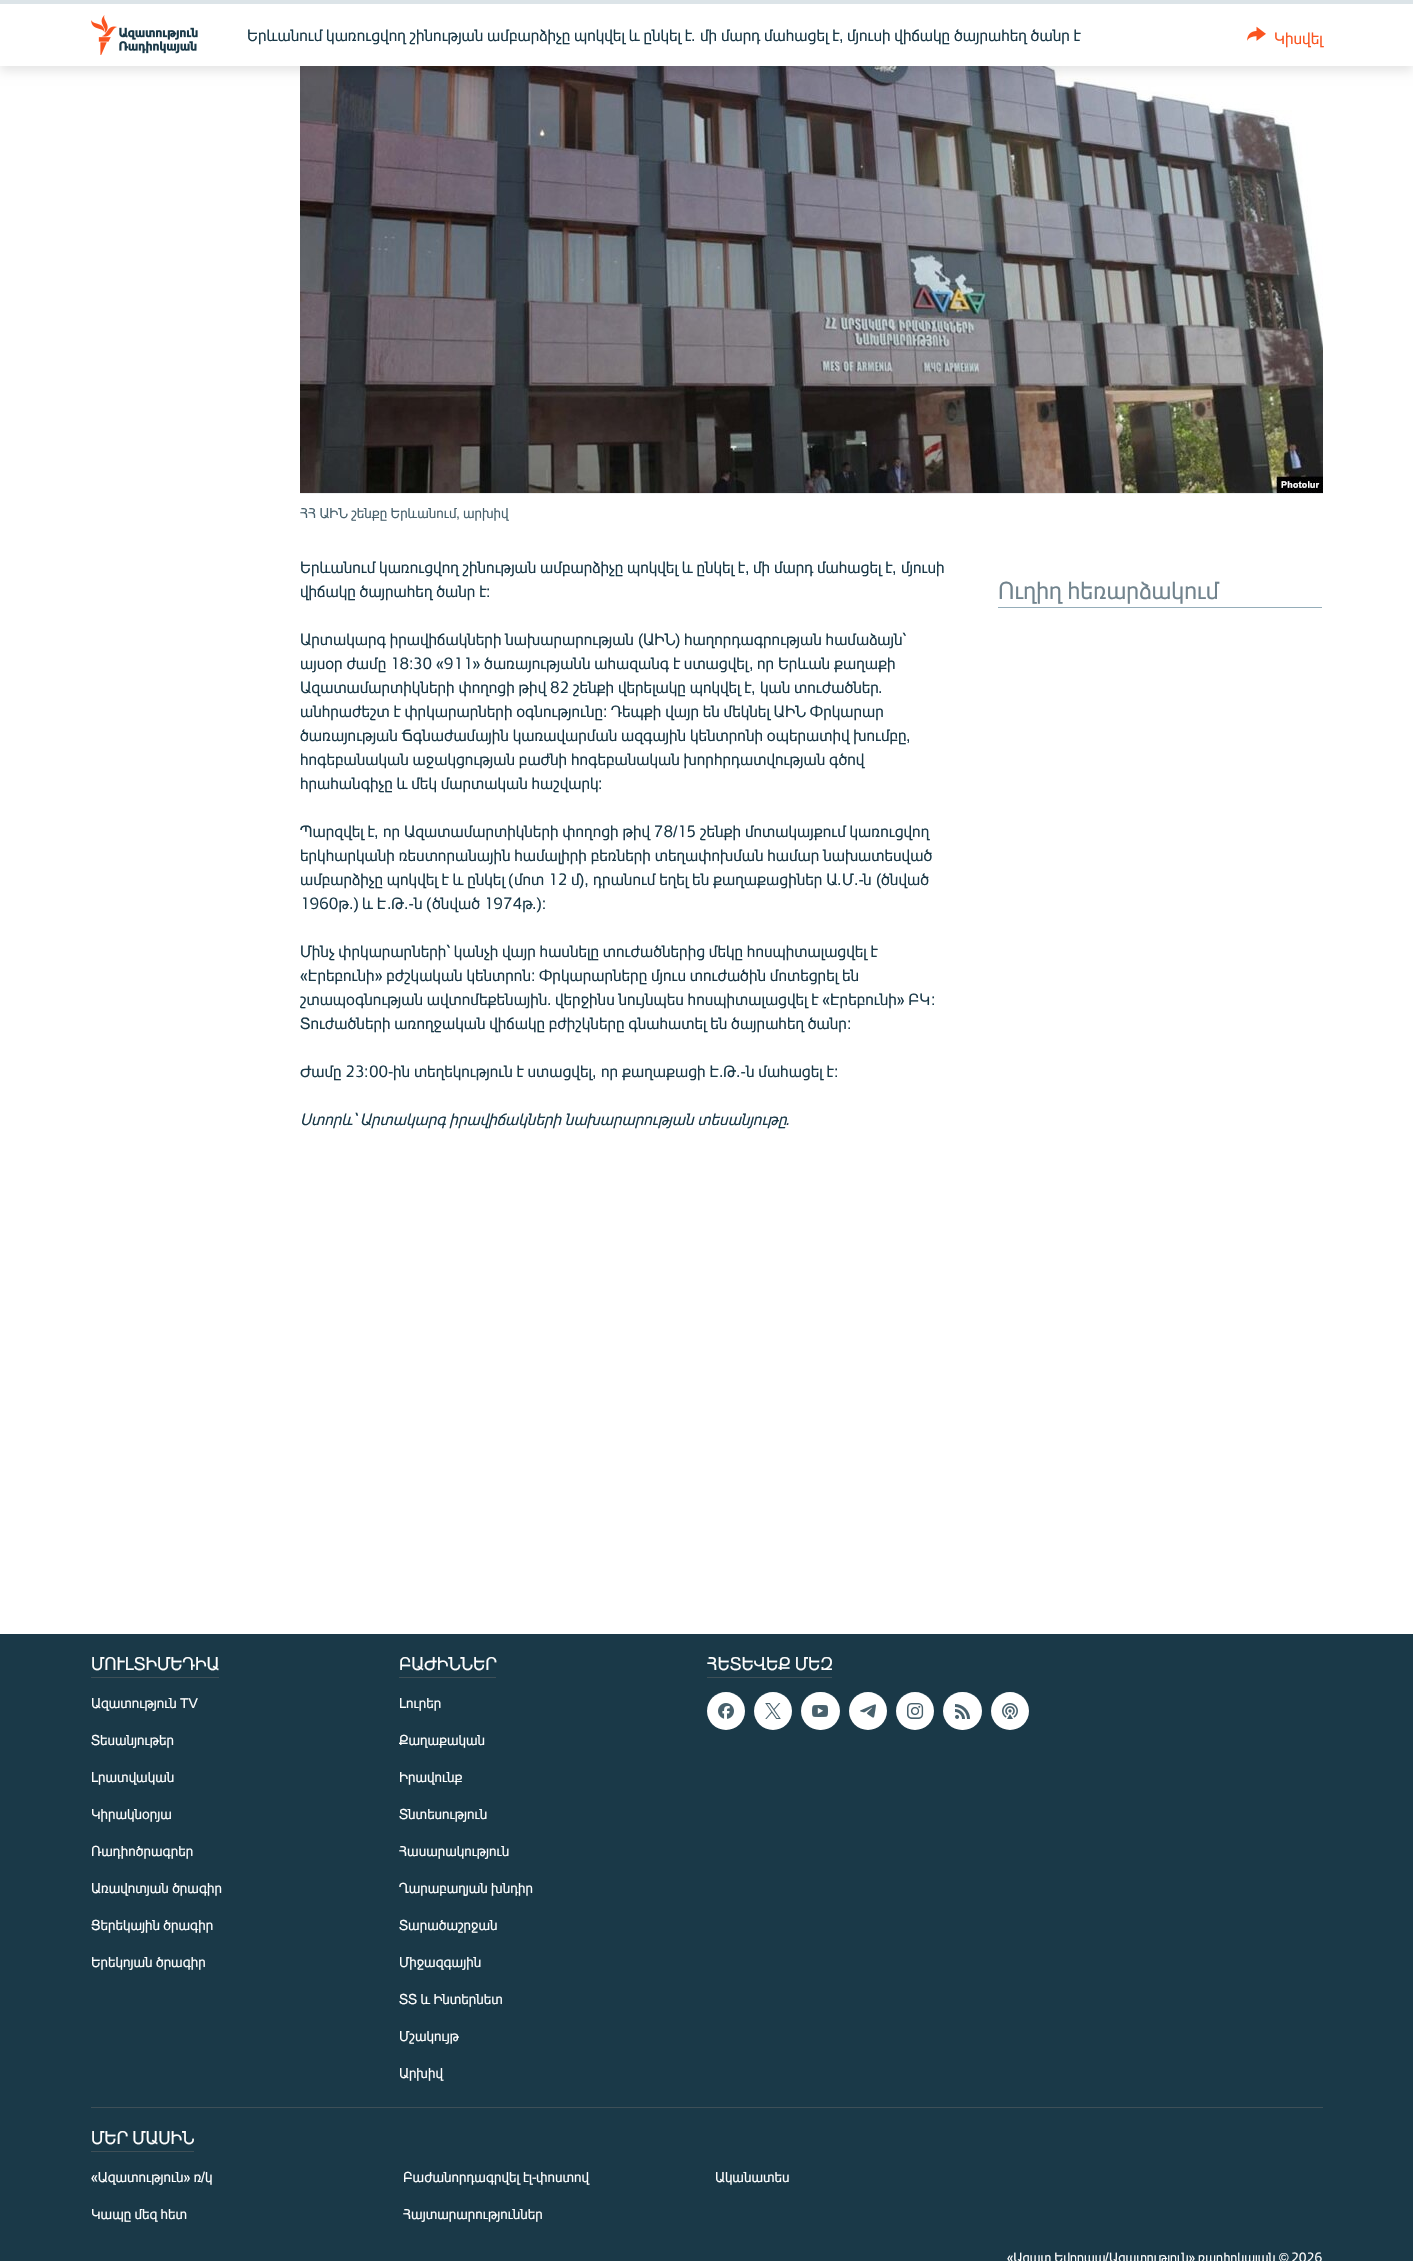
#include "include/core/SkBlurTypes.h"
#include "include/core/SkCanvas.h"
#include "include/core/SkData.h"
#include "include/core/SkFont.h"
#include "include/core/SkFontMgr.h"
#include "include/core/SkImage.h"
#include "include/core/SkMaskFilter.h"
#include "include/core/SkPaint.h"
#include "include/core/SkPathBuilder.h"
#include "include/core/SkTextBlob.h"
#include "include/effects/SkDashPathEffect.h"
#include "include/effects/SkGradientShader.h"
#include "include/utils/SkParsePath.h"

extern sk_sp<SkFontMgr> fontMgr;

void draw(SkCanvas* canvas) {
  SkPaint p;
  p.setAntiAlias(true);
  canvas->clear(SK_ColorWHITE);
  canvas->drawImageRect(SkImages::DeferredFromEncodedData(SkData::MakeFromFileName("images/3.png")), SkRect::MakeLTRB(300, 66, 1323, 493), SkSamplingOptions());
  p.setColor(SkColorSetARGB(26, 0, 0, 0));
  p.setMaskFilter(SkMaskFilter::MakeBlur(kNormal_SkBlurStyle, 5));
  canvas->drawRect(SkRect::MakeLTRB(0, 5, 1413, 71), p);
  p.setMaskFilter(nullptr);
  p.setColor(SK_ColorWHITE);
  canvas->drawRect(SkRect::MakeLTRB(0, 4, 1413, 66), p);
  p.setColor(SkColorSetRGB(220, 228, 232));
  canvas->drawRect(SkRect::MakeLTRB(0, 0, 1413, 4), p);
  canvas->drawImageRect(SkImages::DeferredFromEncodedData(SkData::MakeFromFileName("images/1.png")), SkRect::MakeLTRB(91, 15, 198, 55), SkSamplingOptions());
  canvas->drawImageRect(SkImages::DeferredFromEncodedData(SkData::MakeFromFileName("images/2.png")), SkRect::MakeLTRB(1247, 26, 1266, 41), SkSamplingOptions());
  p.setColor(SkColorSetRGB(237, 239, 240));
  canvas->drawRect(SkRect::MakeLTRB(300, 493, 1323, 494), p);
  p.setColor(SkColorSetRGB(149, 173, 185));
  canvas->drawRect(SkRect::MakeLTRB(998, 607, 1322, 608), p);
  p.setColor(SkColorSetRGB(26, 57, 72));
  canvas->drawRect(SkRect::MakeLTRB(0, 1634, 1413, 2261), p);
  p.setColor(SkColorSetRGB(62, 79, 87));
  canvas->drawRect(SkRect::MakeLTRB(91, 1677, 219, 1678), p);
  canvas->drawRect(SkRect::MakeLTRB(399, 1677, 496, 1678), p);
  canvas->drawRect(SkRect::MakeLTRB(707, 1677, 832, 1678), p);
  p.setColor(SK_ColorWHITE);
  canvas->drawCircle(726, 1711, 19, p);
  canvas->drawImageRect(SkImages::DeferredFromEncodedData(SkData::MakeFromFileName("images/4.png")), SkRect::MakeLTRB(718, 1703, 734, 1719), SkSamplingOptions());
  canvas->drawCircle(773, 1711, 19, p);
  canvas->drawImageRect(SkImages::DeferredFromEncodedData(SkData::MakeFromFileName("images/5.png")), SkRect::MakeLTRB(765, 1703, 781, 1719), SkSamplingOptions());
  canvas->drawRoundRect(SkRect::MakeLTRB(801, 1692, 840, 1730), 19, 19, p);
  canvas->drawImageRect(SkImages::DeferredFromEncodedData(SkData::MakeFromFileName("images/6.png")), SkRect::MakeLTRB(812, 1705, 828, 1717), SkSamplingOptions());
  canvas->drawCircle(868, 1711, 19, p);
  canvas->drawImageRect(SkImages::DeferredFromEncodedData(SkData::MakeFromFileName("images/7.png")), SkRect::MakeLTRB(860, 1704, 876, 1718), SkSamplingOptions());
  canvas->drawCircle(915, 1711, 19, p);
  canvas->drawImageRect(SkImages::DeferredFromEncodedData(SkData::MakeFromFileName("images/8.png")), SkRect::MakeLTRB(907, 1703, 924, 1719), SkSamplingOptions());
  canvas->drawRoundRect(SkRect::MakeLTRB(943, 1692, 982, 1730), 19, 19, p);
  canvas->drawImageRect(SkImages::DeferredFromEncodedData(SkData::MakeFromFileName("images/9.png")), SkRect::MakeLTRB(955, 1704, 970, 1719), SkSamplingOptions());
  canvas->drawCircle(1010, 1711, 19, p);
  canvas->drawImageRect(SkImages::DeferredFromEncodedData(SkData::MakeFromFileName("images/10.png")), SkRect::MakeLTRB(1002, 1703, 1018, 1719), SkSamplingOptions());
  p.setColor(SkColorSetRGB(62, 79, 87));
  canvas->drawRect(SkRect::MakeLTRB(91, 2107, 1323, 2108), p);
  canvas->drawRect(SkRect::MakeLTRB(91, 2151, 194, 2152), p);
  SkFont font1(fontMgr->matchFamilyStyle("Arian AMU", SkFontStyle::Normal()), 16);
  font1.setSubpixel(true);
  p.setColor(SkColorSetRGB(26, 57, 72));
  canvas->drawString("Երևանում կառուցվող շինության ամբարձիչը պոկվել և ընկել է", 247, 41, font1, p);
  SkFont font2(fontMgr->matchFamilyStyle("Liberation Sans", SkFontStyle::Normal()), 16);
  font2.setSubpixel(true);
  canvas->drawString(".", 691, 41, font2, p);
  canvas->drawString("մի մարդ մահացել է", 700, 41, font1, p);
  canvas->drawString(",", 839, 41, font2, p);
  canvas->drawString("մյուսի վիճակը ծայրահեղ ծանր է", 847, 41, font1, p);
  p.setColor(SkColorSetRGB(250, 84, 32));
  canvas->drawString("Կիսվել", 1274, 44, font1, p);
  SkFont font3(fontMgr->matchFamilyStyle("Arian AMU", SkFontStyle::Normal()), 14);
  font3.setSubpixel(true);
  p.setColor(SkColorSetRGB(72, 97, 109));
  canvas->drawString("ՀՀ ԱԻՆ շենքը Երևանում", 300, 518, font3, p);
  SkFont font4(fontMgr->matchFamilyStyle("Liberation Sans", SkFontStyle::Normal()), 14);
  font4.setSubpixel(true);
  canvas->drawString(",", 456, 518, font4, p);
  canvas->drawString("արխիվ", 463, 518, font3, p);
  p.setColor(SkColorSetRGB(26, 57, 72));
  canvas->drawString("Երևանում կառուցվող շինության ամբարձիչը պոկվել և ընկել է", 300, 573, font1, p);
  canvas->drawString(",", 745, 573, font2, p);
  canvas->drawString("մի մարդ մահացել է", 753, 573, font1, p);
  canvas->drawString(",", 892, 573, font2, p);
  canvas->drawString("մյուսի", 901, 573, font1, p);
  canvas->drawString("վիճակը ծայրահեղ ծանր է", 300, 597, font1, p);
  canvas->drawString(":", 486, 597, font2, p);
  canvas->drawString("Արտակարգ իրավիճակների նախարարության", 300, 645, font1, p);
  canvas->drawString("(", 638, 645, font2, p);
  canvas->drawString("ԱԻՆ", 643, 645, font1, p);
  canvas->drawString(")", 675, 645, font2, p);
  canvas->drawString("հաղորդագրության համաձայն՝", 684, 645, font1, p);
  canvas->drawString("այսօր ժամը 18", 300, 669, font1, p);
  canvas->drawString(":", 409, 669, font2, p);
  canvas->drawString("30 «911» ծառայությանն ահազանգ է ստացվել", 413, 669, font1, p);
  canvas->drawString("որ Երևան քաղաքի", 757, 669, font1, p);
  canvas->drawString(",", 749, 669, font2, p);
  canvas->drawString("Ազատամարտիկների փողոցի թիվ 82 շենքի վերելակը պոկվել է", 300, 693, font1, p);
  canvas->drawString(",", 751, 693, font2, p);
  canvas->drawString("կան տուժածներ", 760, 693, font1, p);
  canvas->drawString(".", 878, 693, font2, p);
  canvas->drawString("անհրաժեշտ է փրկարարների օգնությունը", 300, 717, font1, p);
  canvas->drawString(":", 603, 717, font2, p);
  canvas->drawString("Դեպքի վայր են մեկնել ԱԻՆ Փրկարար", 611, 717, font1, p);
  canvas->drawString("ծառայության Ճգնաժամային կառավարման ազգային կենտրոնի օպերատիվ խումբը", 300, 741, font1, p);
  canvas->drawString(",", 906, 741, font2, p);
  canvas->drawString("հոգեբանական աջակցության բաժնի հոգեբանական խորհրդատվության գծով", 300, 765, font1, p);
  canvas->drawString("հրահանգիչը և մեկ մարտական հաշվարկ", 300, 789, font1, p);
  canvas->drawString(":", 598, 789, font2, p);
  canvas->drawString("Պարզվել է", 300, 837, font1, p);
  canvas->drawString(",", 374, 837, font2, p);
  canvas->drawString("որ Ազատամարտիկների փողոցի թիվ 78", 383, 837, font1, p);
  canvas->drawString("/", 673, 837, font2, p);
  canvas->drawString("15 շենքի մոտակայքում կառուցվող", 677, 837, font1, p);
  canvas->drawString("երկհարկանի ռեստորանային համալիրի բեռների տեղափոխման համար նախատեսված", 300, 861, font1, p);
  canvas->drawString("ամբարձիչը պոկվել է և ընկել", 300, 885, font1, p);
  canvas->drawString("(", 508, 885, font2, p);
  canvas->drawString("մոտ 12 մ", 514, 885, font1, p);
  canvas->drawString("),", 579, 885, font2, p);
  canvas->drawString("դրանում եղել են քաղաքացիներ Ա", 593, 885, font1, p);
  canvas->drawString(".", 837, 885, font2, p);
  canvas->drawString("Մ", 842, 885, font1, p);
  canvas->drawString(".-", 854, 885, font2, p);
  canvas->drawString("ն", 863, 885, font1, p);
  canvas->drawString("(", 876, 885, font2, p);
  canvas->drawString("ծնված", 881, 885, font1, p);
  canvas->drawString("1960թ", 300, 909, font1, p);
  canvas->drawString(".)", 349, 909, font2, p);
  canvas->drawString("և Է", 362, 909, font1, p);
  canvas->drawString(".", 387, 909, font2, p);
  canvas->drawString("Թ", 391, 909, font1, p);
  canvas->drawString(".-", 404, 909, font2, p);
  canvas->drawString("ն", 414, 909, font1, p);
  canvas->drawString("(", 426, 909, font2, p);
  canvas->drawString("ծնված 1974թ", 432, 909, font1, p);
  canvas->drawString(".):", 532, 909, font2, p);
  canvas->drawString("Մինչ փրկարարների՝ կանչի վայր հասնելը տուժածներից մեկը հոսպիտալացվել է", 300, 957, font1, p);
  canvas->drawString("«Էրեբունի» բժշկական կենտրոն", 300, 981, font1, p);
  canvas->drawString(":", 531, 981, font2, p);
  canvas->drawString("Փրկարարները մյուս տուժածին մոտեցրել են", 539, 981, font1, p);
  canvas->drawString("շտապօգնության ավտոմեքենային", 300, 1005, font1, p);
  canvas->drawString(".", 547, 1005, font2, p);
  canvas->drawString("վերջինս նույնպես հոսպիտալացվել է «Էրեբունի» ԲԿ", 555, 1005, font1, p);
  canvas->drawString(":", 931, 1005, font2, p);
  canvas->drawString("Տուժածների առողջական վիճակը բժիշկները գնահատել են ծայրահեղ ծանր", 300, 1029, font1, p);
  canvas->drawString(":", 847, 1029, font2, p);
  canvas->drawString("Ժամը 23", 300, 1077, font1, p);
  canvas->drawString(":", 364, 1077, font2, p);
  canvas->drawString("00", 369, 1077, font1, p);
  canvas->drawString("-", 388, 1077, font2, p);
  canvas->drawString("ին տեղեկություն է ստացվել", 393, 1077, font1, p);
  canvas->drawString("որ քաղաքացի Է", 601, 1077, font1, p);
  canvas->drawString("Թ", 723, 1077, font1, p);
  canvas->drawString(".-", 736, 1077, font2, p);
  canvas->drawString("ն մահացել է", 746, 1077, font1, p);
  canvas->drawString(":", 834, 1077, font2, p);
  canvas->drawString(",", 592, 1077, font2, p);
  canvas->drawString(".", 719, 1077, font2, p);
  SkFont font5(fontMgr->matchFamilyStyle("Arian AMU", SkFontStyle::Italic()), 16);
  font5.setSubpixel(true);
  canvas->drawString("Ստորև՝ Արտակարգ իրավիճակների նախարարության տեսանյութը", 300, 1125, font5, p);
  SkFont font6(fontMgr->matchFamilyStyle("Liberation Sans", SkFontStyle::Italic()), 16);
  font6.setSubpixel(true);
  canvas->drawString(".", 786, 1125, font6, p);
  SkFont font7(fontMgr->matchFamilyStyle("Arian AMU", SkFontStyle::Normal()), 24);
  font7.setSubpixel(true);
  p.setColor(SkColorSetRGB(113, 131, 141));
  canvas->drawString("Ուղիղ հեռարձակում", 998, 599, font7, p);
  SkFont font8(fontMgr->matchFamilyStyle("Arian AMU", SkFontStyle::Normal()), 18);
  font8.setSubpixel(true);
  p.setColor(SK_ColorWHITE);
  canvas->drawString("ՄՈՒԼՏԻՄԵԴԻԱ", 91, 1670, font8, p);
  canvas->drawString("Ազատություն", 91, 1708, font3, p);
  canvas->drawString("TV", 180, 1708, font4, p);
  canvas->drawString("Տեսանյութեր", 91, 1745, font3, p);
  canvas->drawString("Լրատվական", 91, 1782, font3, p);
  canvas->drawString("Կիրակնօրյա", 91, 1819, font3, p);
  canvas->drawString("Ռադիոծրագրեր", 91, 1856, font3, p);
  canvas->drawString("Առավոտյան ծրագիր", 91, 1893, font3, p);
  canvas->drawString("Ցերեկային ծրագիր", 91, 1930, font3, p);
  canvas->drawString("Երեկոյան ծրագիր", 91, 1967, font3, p);
  canvas->drawString("ԲԱԺԻՆՆԵՐ", 399, 1670, font8, p);
  canvas->drawString("Լուրեր", 399, 1708, font3, p);
  canvas->drawString("Քաղաքական", 399, 1745, font3, p);
  canvas->drawString("Իրավունք", 399, 1782, font3, p);
  canvas->drawString("Տնտեսություն", 399, 1819, font3, p);
  canvas->drawString("Հասարակություն", 399, 1856, font3, p);
  canvas->drawString("Ղարաբաղյան խնդիր", 399, 1893, font3, p);
  canvas->drawString("Տարածաշրջան", 399, 1930, font3, p);
  canvas->drawString("Միջազգային", 399, 1967, font3, p);
  canvas->drawString("ՏՏ և Ինտերնետ", 399, 2004, font3, p);
  canvas->drawString("Մշակույթ", 399, 2041, font3, p);
  canvas->drawString("Արխիվ", 399, 2078, font3, p);
  canvas->drawString("ՀԵՏԵՎԵՔ ՄԵԶ", 707, 1670, font8, p);
  canvas->drawString("ՄԵՐ ՄԱՍԻՆ", 91, 2144, font8, p);
  canvas->drawString("«Ազատություն» ռ", 91, 2182, font3, p);
  canvas->drawString("/", 201, 2182, font4, p);
  canvas->drawString("կ", 205, 2182, font3, p);
  canvas->drawString("Բաժանորդագրվել էլ", 403, 2182, font3, p);
  canvas->drawString("-", 532, 2182, font4, p);
  canvas->drawString("փոստով", 536, 2182, font3, p);
  canvas->drawString("Ականատես", 715, 2182, font3, p);
  canvas->drawString("Կապը մեզ հետ", 91, 2219, font3, p);
  canvas->drawString("Հայտարարություններ", 403, 2219, font3, p);
  SkFont font9(fontMgr->matchFamilyStyle("Arian AMU", SkFontStyle::Normal()), 13);
  font9.setSubpixel(true);
  canvas->drawString("«Ազատ Եվրոպա", 1007, 2262, font9, p);
  SkFont font10(fontMgr->matchFamilyStyle("Liberation Sans", SkFontStyle::Normal()), 13);
  font10.setSubpixel(true);
  canvas->drawString("/", 1105, 2262, font10, p);
  canvas->drawString("Ազատություն» ռադիոկայան", 1109, 2262, font9, p);
  canvas->drawString("©", 1279, 2262, font10, p);
  canvas->drawString("2026", 1291, 2262, font9, p);
}
